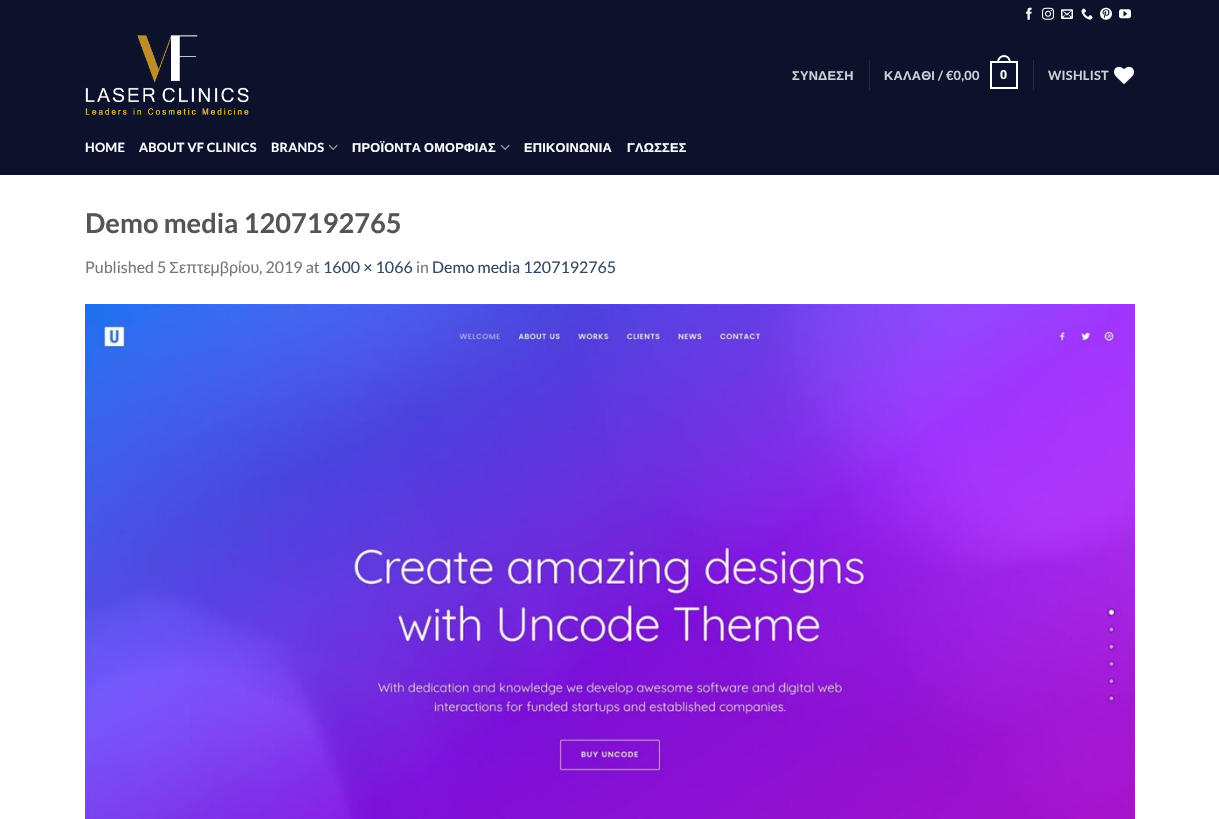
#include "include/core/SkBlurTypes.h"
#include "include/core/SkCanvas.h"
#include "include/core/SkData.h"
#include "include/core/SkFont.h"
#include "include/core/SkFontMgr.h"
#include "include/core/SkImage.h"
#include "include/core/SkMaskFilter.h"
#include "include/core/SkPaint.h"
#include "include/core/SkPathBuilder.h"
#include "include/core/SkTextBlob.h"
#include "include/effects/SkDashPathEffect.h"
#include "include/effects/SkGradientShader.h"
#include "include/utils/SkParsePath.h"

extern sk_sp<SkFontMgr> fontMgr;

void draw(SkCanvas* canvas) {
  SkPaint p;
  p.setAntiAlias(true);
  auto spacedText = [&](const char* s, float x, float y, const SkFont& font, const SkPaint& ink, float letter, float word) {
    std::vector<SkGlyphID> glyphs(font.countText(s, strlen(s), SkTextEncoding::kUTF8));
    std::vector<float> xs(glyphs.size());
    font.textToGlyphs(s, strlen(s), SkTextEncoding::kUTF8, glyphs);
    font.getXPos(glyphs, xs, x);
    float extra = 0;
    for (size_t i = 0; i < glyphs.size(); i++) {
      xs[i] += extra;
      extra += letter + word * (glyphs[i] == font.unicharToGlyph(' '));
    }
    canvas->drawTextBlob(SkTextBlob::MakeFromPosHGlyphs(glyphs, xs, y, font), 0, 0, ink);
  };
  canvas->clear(SK_ColorWHITE);
  p.setColor(SkColorSetRGB(12, 18, 44));
  canvas->drawRect(SkRect::MakeLTRB(0, 0, 1219, 175), p);
  canvas->drawImageRect(SkImages::DeferredFromEncodedData(SkData::MakeFromFileName("images/1.png")), SkRect::MakeLTRB(1026, 7, 1032, 20), SkSamplingOptions());
  canvas->drawImageRect(SkImages::DeferredFromEncodedData(SkData::MakeFromFileName("images/2.png")), SkRect::MakeLTRB(1042, 7, 1054, 20), SkSamplingOptions());
  canvas->drawImageRect(SkImages::DeferredFromEncodedData(SkData::MakeFromFileName("images/3.png")), SkRect::MakeLTRB(1061, 9, 1073, 19), SkSamplingOptions());
  canvas->drawImageRect(SkImages::DeferredFromEncodedData(SkData::MakeFromFileName("images/4.png")), SkRect::MakeLTRB(1081, 8, 1093, 20), SkSamplingOptions());
  canvas->drawImageRect(SkImages::DeferredFromEncodedData(SkData::MakeFromFileName("images/5.png")), SkRect::MakeLTRB(1100, 7, 1112, 20), SkSamplingOptions());
  canvas->drawImageRect(SkImages::DeferredFromEncodedData(SkData::MakeFromFileName("images/6.png")), SkRect::MakeLTRB(1119, 9, 1131, 19), SkSamplingOptions());
  canvas->drawImageRect(SkImages::DeferredFromEncodedData(SkData::MakeFromFileName("images/7.png")), SkRect::MakeLTRB(85, 35, 249, 115), SkSamplingOptions());
  p.setColor(SkColorSetRGB(36, 42, 65));
  canvas->drawRect(SkRect::MakeLTRB(869, 60, 870, 90), p);
  p.setStyle(SkPaint::kStroke_Style);
  p.setStrokeWidth(2);
  p.setColor(SK_ColorWHITE);
  canvas->drawRect(SkRect::MakeLTRB(991, 62, 1017, 88), p);
  p.setStyle(SkPaint::kFill_Style);
  canvas->drawPath(SkPathBuilder(SkPathFillType::kEvenOdd).moveTo(1004, 55).cubicTo(1008.5f, 55, 1011, 59, 1011, 63).lineTo(997, 63).cubicTo(997, 59, 999.5f, 55, 1004, 55).close().moveTo(1004, 57).cubicTo(1007.5f, 57, 1009, 60, 1009, 63).lineTo(999, 63).cubicTo(999, 60, 1000.5f, 57, 1004, 57).close().detach(), p);
  p.setColor(SkColorSetRGB(36, 42, 65));
  canvas->drawRect(SkRect::MakeLTRB(1033, 60, 1034, 90), p);
  canvas->drawImageRect(SkImages::DeferredFromEncodedData(SkData::MakeFromFileName("images/8.png")), SkRect::MakeLTRB(1114, 66, 1134, 84), SkSamplingOptions());
  canvas->drawImageRect(SkImages::DeferredFromEncodedData(SkData::MakeFromFileName("images/9.png")), SkRect::MakeLTRB(328, 144, 338, 150), SkSamplingOptions());
  canvas->drawImageRect(SkImages::DeferredFromEncodedData(SkData::MakeFromFileName("images/9.png")), SkRect::MakeLTRB(500, 144, 510, 150), SkSamplingOptions());
  canvas->drawImageRect(SkImages::DeferredFromEncodedData(SkData::MakeFromFileName("images/10.png")), SkRect::MakeLTRB(85, 304, 1135, 819), SkSamplingOptions());
  SkFont font1(fontMgr->matchFamilyStyle("Liberation Sans", SkFontStyle::Bold()), 12.75f);
  font1.setSubpixel(true);
  p.setColor(SkColorSetRGB(206, 208, 213));
  spacedText("ΣΥΝΔΕΣΗ", 792, 80, font1, p, 0.25f, 0);
  spacedText("ΚΑΛΑΘΙ", 884, 80, font1, p, 0.25f, 0);
  SkFont font2(fontMgr->matchFamilyStyle("Lato", SkFontStyle::Bold()), 12.75f);
  font2.setSubpixel(true);
  spacedText("/ €0,00", 938, 80, font2, p, 0.25f, 0);
  p.setColor(SK_ColorWHITE);
  spacedText("0", 1000, 79, font1, p, 0.25f, 0);
  p.setColor(SkColorSetRGB(206, 208, 213));
  spacedText("WISHLIST", 1048, 80, font2, p, 0.25f, 0);
  p.setColor(SK_ColorWHITE);
  spacedText("HOME", 85, 152, font2, p, 0.25f, 0);
  spacedText("ABOUT VF CLINICS", 139, 152, font2, p, 0.25f, 0);
  spacedText("BRANDS", 271, 152, font2, p, 0.25f, 0);
  spacedText("ΠΡΟΪΟΝΤΑ ΟΜΟΡΦΙΑΣ", 352, 152, font1, p, 0.25f, -1);
  spacedText("ΕΠΙΚΟΙΝΩΝΙΑ", 524, 152, font1, p, 0.25f, 0);
  spacedText("ΓΛΩΣΣΕΣ", 627, 152, font1, p, 0.25f, 0);
  SkFont font3(fontMgr->matchFamilyStyle("Lato", SkFontStyle::Bold()), 27.25f);
  font3.setSubpixel(true);
  p.setColor(SkColorSetRGB(85, 85, 85));
  canvas->drawString("Demo media 1207192765", 85, 233, font3, p);
  SkFont font4(fontMgr->matchFamilyStyle("Lato", SkFontStyle::Normal()), 16);
  font4.setSubpixel(true);
  p.setColor(SkColorSetRGB(119, 119, 119));
  canvas->drawString("Published 5", 85, 273, font4, p);
  SkFont font5(fontMgr->matchFamilyStyle("Liberation Sans", SkFontStyle::Normal()), 16);
  font5.setSubpixel(true);
  canvas->drawString("Σεπτεμβρίου", 169, 273, font5, p);
  canvas->drawString(", 2019 at", 259, 273, font4, p);
  p.setColor(SkColorSetRGB(51, 72, 98));
  canvas->drawString("1600 × 1066", 323, 273, font4, p);
  p.setColor(SkColorSetRGB(119, 119, 119));
  canvas->drawString("in", 416, 273, font4, p);
  p.setColor(SkColorSetRGB(51, 72, 98));
  canvas->drawString("Demo media 1207192765", 432, 273, font4, p);
}
